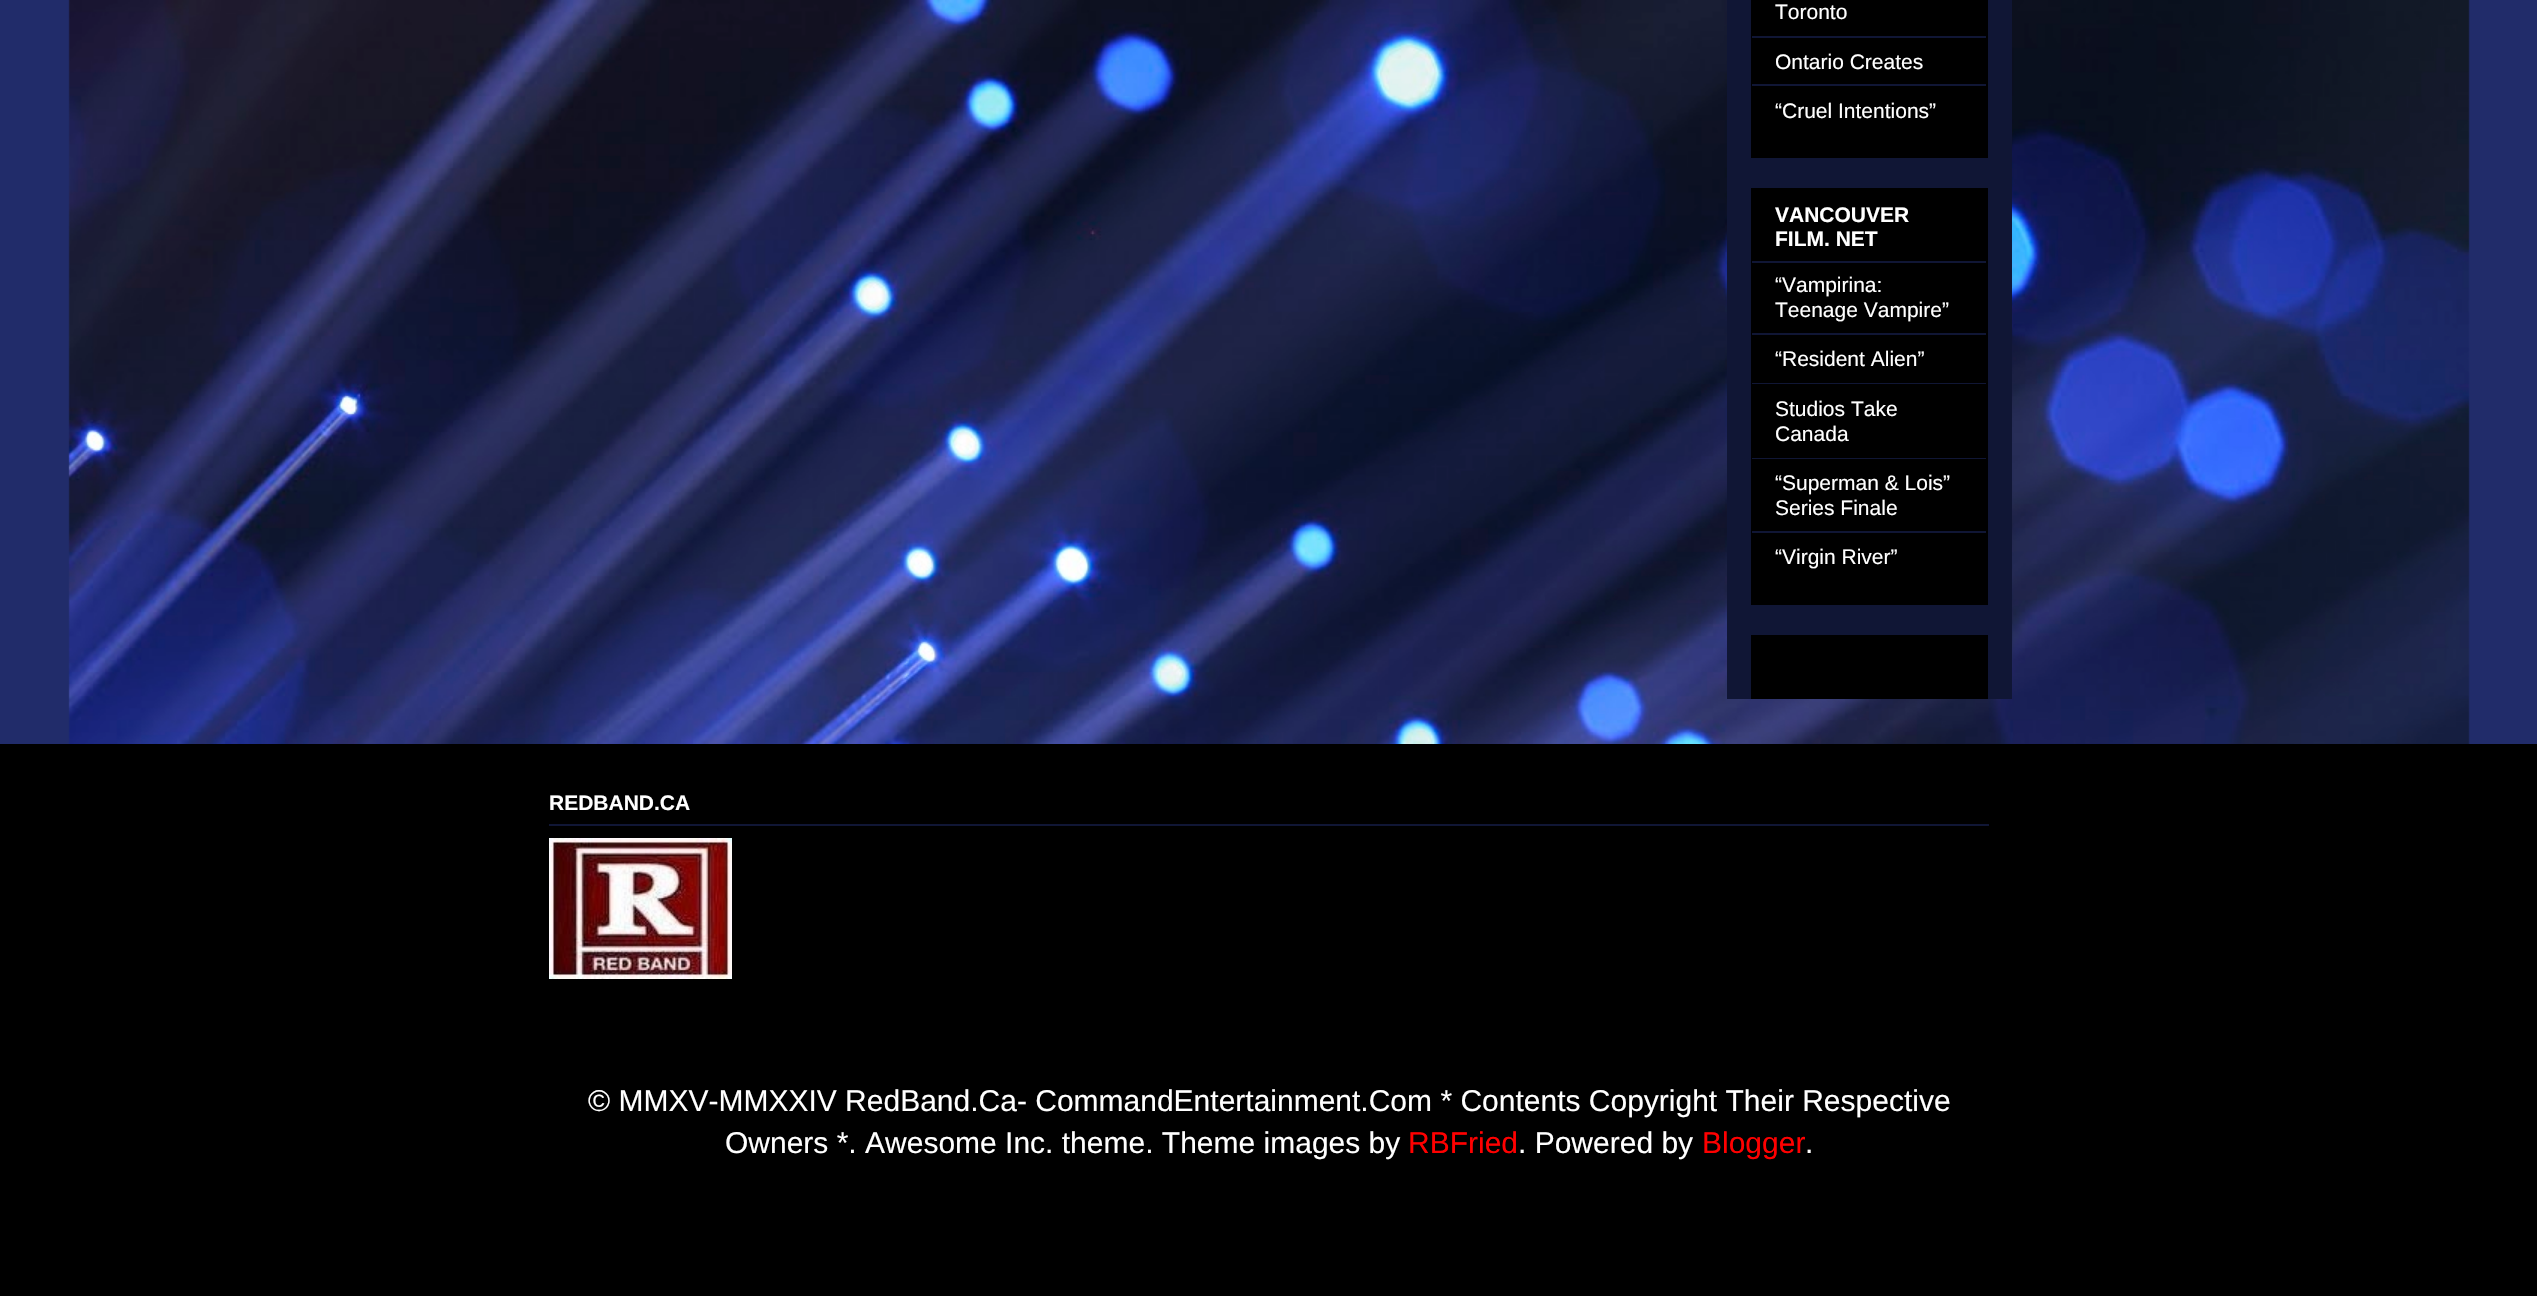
#include "include/core/SkBlurTypes.h"
#include "include/core/SkCanvas.h"
#include "include/core/SkData.h"
#include "include/core/SkFont.h"
#include "include/core/SkFontMgr.h"
#include "include/core/SkImage.h"
#include "include/core/SkMaskFilter.h"
#include "include/core/SkPaint.h"
#include "include/core/SkPathBuilder.h"
#include "include/core/SkTextBlob.h"
#include "include/effects/SkDashPathEffect.h"
#include "include/effects/SkGradientShader.h"
#include "include/utils/SkParsePath.h"

extern sk_sp<SkFontMgr> fontMgr;

void draw(SkCanvas* canvas) {
  SkPaint p;
  p.setAntiAlias(true);
  canvas->clear(SkColorSetRGB(33, 44, 106));
  canvas->drawImageRect(SkImages::DeferredFromEncodedData(SkData::MakeFromFileName("images/1.png")), SkRect::MakeLTRB(68, 0, 2470, 744), SkSamplingOptions());
  p.setColor(SkColorSetRGB(16, 22, 53));
  canvas->drawRect(SkRect::MakeLTRB(1727, 0, 2012, 699), p);
  p.setColor(SK_ColorBLACK);
  canvas->drawRect(SkRect::MakeLTRB(1751, 0, 1988, 158), p);
  p.setColor(SkColorSetRGB(16, 22, 53));
  canvas->drawRect(SkRect::MakeLTRB(1752, 36, 1986, 38), p);
  canvas->drawRect(SkRect::MakeLTRB(1752, 84, 1986, 86), p);
  p.setColor(SK_ColorBLACK);
  canvas->drawRect(SkRect::MakeLTRB(1751, 188, 1988, 605), p);
  p.setColor(SkColorSetRGB(16, 22, 53));
  canvas->drawRect(SkRect::MakeLTRB(1752, 261, 1986, 263), p);
  canvas->drawRect(SkRect::MakeLTRB(1752, 333, 1986, 335), p);
  canvas->drawRect(SkRect::MakeLTRB(1752, 383, 1986, 384), p);
  canvas->drawRect(SkRect::MakeLTRB(1752, 458, 1986, 459), p);
  canvas->drawRect(SkRect::MakeLTRB(1752, 531, 1986, 533), p);
  p.setColor(SK_ColorBLACK);
  canvas->drawRect(SkRect::MakeLTRB(1751, 635, 1988, 699), p);
  canvas->drawRect(SkRect::MakeLTRB(0, 744, 2537, 1296), p);
  p.setColor(SkColorSetRGB(16, 22, 53));
  canvas->drawRect(SkRect::MakeLTRB(549, 824, 1989, 826), p);
  canvas->drawImageRect(SkImages::DeferredFromEncodedData(SkData::MakeFromFileName("images/2.png")), SkRect::MakeLTRB(549, 838, 732, 979), SkSamplingOptions());
  SkFont font1(fontMgr->matchFamilyStyle("Liberation Sans", SkFontStyle::Normal()), 21);
  font1.setSubpixel(true);
  p.setColor(SK_ColorWHITE);
  canvas->drawString("Toronto", 1775, 19, font1, p);
  canvas->drawString("Ontario Creates", 1775, 69, font1, p);
  canvas->drawString("“Cruel Intentions”", 1775, 118, font1, p);
  SkFont font2(fontMgr->matchFamilyStyle("Liberation Sans", SkFontStyle::Bold()), 21);
  font2.setSubpixel(true);
  canvas->drawString("VANCOUVER", 1775, 222, font2, p);
  canvas->drawString("FILM. NET", 1775, 246, font2, p);
  canvas->drawString("“Vampirina:", 1775, 292, font1, p);
  canvas->drawString("Teenage Vampire”", 1775, 317, font1, p);
  canvas->drawString("“Resident Alien”", 1775, 366, font1, p);
  canvas->drawString("Studios Take", 1775, 416, font1, p);
  canvas->drawString("Canada", 1775, 441, font1, p);
  canvas->drawString("“Superman & Lois”", 1775, 490, font1, p);
  canvas->drawString("Series Finale", 1775, 515, font1, p);
  canvas->drawString("“Virgin River”", 1775, 564, font1, p);
  canvas->drawString("REDBAND.CA", 549, 810, font2, p);
  SkFont font3(fontMgr->matchFamilyStyle("Liberation Sans", SkFontStyle::Normal()), 30);
  font3.setSubpixel(true);
  canvas->drawString("© MMXV-MMXXIV RedBand.Ca- CommandEntertainment.Com * Contents Copyright Their Respective", 588, 1111, font3, p);
  canvas->drawString("Owners *. Awesome Inc. theme. Theme images by", 725, 1153, font3, p);
  p.setColor(SkColorSetRGB(255, 0, 0));
  canvas->drawString("RBFried", 1408, 1153, font3, p);
  p.setColor(SK_ColorWHITE);
  canvas->drawString(". Powered by", 1518, 1153, font3, p);
  p.setColor(SkColorSetRGB(255, 0, 0));
  canvas->drawString("Blogger", 1702, 1153, font3, p);
  p.setColor(SK_ColorWHITE);
  canvas->drawString(".", 1805, 1153, font3, p);
}
